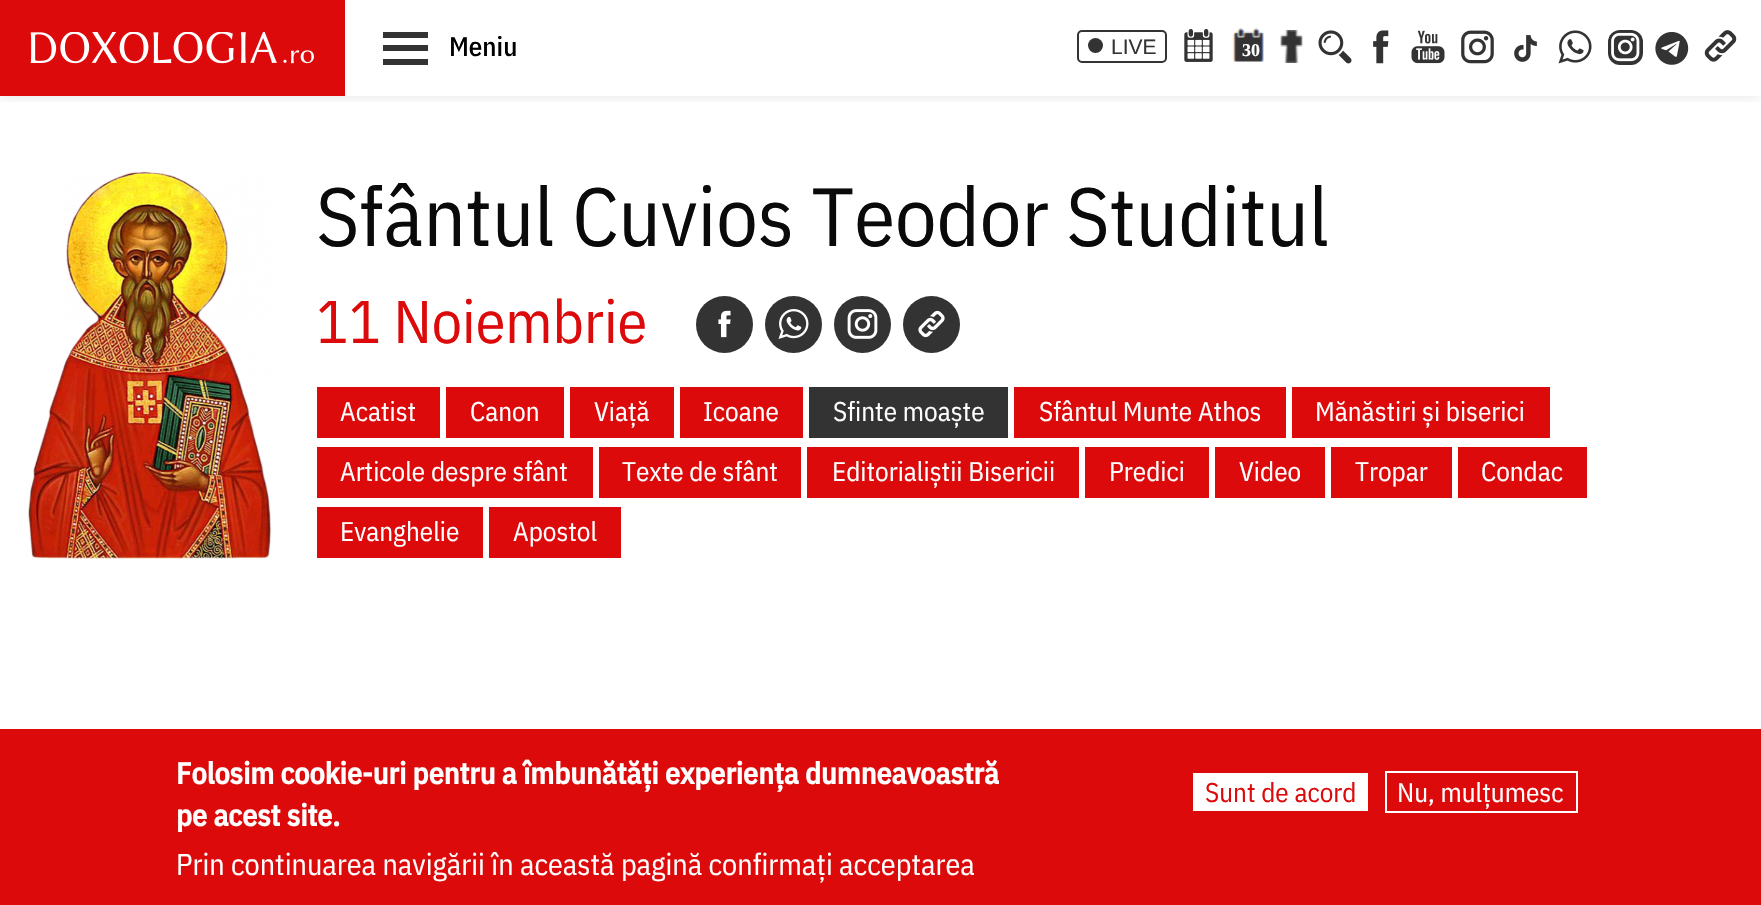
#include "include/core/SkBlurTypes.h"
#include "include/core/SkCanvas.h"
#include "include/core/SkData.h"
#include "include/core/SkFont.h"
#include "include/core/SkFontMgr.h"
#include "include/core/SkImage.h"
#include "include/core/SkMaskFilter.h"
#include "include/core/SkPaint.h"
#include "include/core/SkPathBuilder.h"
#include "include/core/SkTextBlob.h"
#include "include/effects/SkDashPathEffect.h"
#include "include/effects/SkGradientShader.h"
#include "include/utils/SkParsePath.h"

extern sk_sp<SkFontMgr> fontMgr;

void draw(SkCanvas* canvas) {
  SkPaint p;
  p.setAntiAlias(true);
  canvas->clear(SK_ColorWHITE);
  canvas->save();
  canvas->clipRect(SkRect::MakeLTRB(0, 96, 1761, 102));
  p.setColor(SkColorSetARGB(26, 0, 0, 0));
  p.setMaskFilter(SkMaskFilter::MakeBlur(kNormal_SkBlurStyle, 7.5f));
  canvas->drawRect(SkRect::MakeLTRB(0, 0, 1761, 96), p);
  p.setMaskFilter(nullptr);
  canvas->restore();
  p.setColor(SkColorSetRGB(220, 10, 10));
  canvas->drawRect(SkRect::MakeLTRB(0, 0, 345, 96), p);
  canvas->drawImageRect(SkImages::DeferredFromEncodedData(SkData::MakeFromFileName("images/1.png")), SkRect::MakeLTRB(30, 32, 314, 64), SkSamplingOptions());
  p.setColor(SkColorSetRGB(51, 51, 51));
  canvas->drawRect(SkRect::MakeLTRB(383, 32, 428, 38), p);
  canvas->drawRect(SkRect::MakeLTRB(383, 45, 428, 51), p);
  canvas->drawRect(SkRect::MakeLTRB(383, 59, 428, 65), p);
  p.setStyle(SkPaint::kStroke_Style);
  p.setStrokeWidth(2);
  canvas->drawRoundRect(SkRect::MakeLTRB(1078, 31, 1166, 62), 4, 4, p);
  p.setStyle(SkPaint::kFill_Style);
  canvas->drawCircle(1095.5f, 45.5f, 7.5f, p);
  canvas->drawImageRect(SkImages::DeferredFromEncodedData(SkData::MakeFromFileName("images/2.png")), SkRect::MakeLTRB(1184, 29, 1213, 62), SkSamplingOptions());
  canvas->drawImageRect(SkImages::DeferredFromEncodedData(SkData::MakeFromFileName("images/3.png")), SkRect::MakeLTRB(1232, 28, 1264, 62), SkSamplingOptions());
  canvas->drawImageRect(SkImages::DeferredFromEncodedData(SkData::MakeFromFileName("images/4.png")), SkRect::MakeLTRB(1280, 30, 1303, 63), SkSamplingOptions());
  canvas->drawImageRect(SkImages::DeferredFromEncodedData(SkData::MakeFromFileName("images/5.png")), SkRect::MakeLTRB(1318, 30, 1352, 64), SkSamplingOptions());
  canvas->drawImageRect(SkImages::DeferredFromEncodedData(SkData::MakeFromFileName("images/6.png")), SkRect::MakeLTRB(1373, 30, 1389, 64), SkSamplingOptions());
  canvas->drawImageRect(SkImages::DeferredFromEncodedData(SkData::MakeFromFileName("images/7.png")), SkRect::MakeLTRB(1411, 30, 1445, 64), SkSamplingOptions());
  canvas->drawImageRect(SkImages::DeferredFromEncodedData(SkData::MakeFromFileName("images/8.png")), SkRect::MakeLTRB(1461, 30, 1494, 64), SkSamplingOptions());
  canvas->drawImageRect(SkImages::DeferredFromEncodedData(SkData::MakeFromFileName("images/9.png")), SkRect::MakeLTRB(1514, 35, 1537, 62), SkSamplingOptions());
  canvas->drawImageRect(SkImages::DeferredFromEncodedData(SkData::MakeFromFileName("images/10.png")), SkRect::MakeLTRB(1558, 30, 1592, 64), SkSamplingOptions());
  canvas->drawRoundRect(SkRect::MakeLTRB(1608, 30, 1643, 65), 12, 12, p);
  canvas->drawImageRect(SkImages::DeferredFromEncodedData(SkData::MakeFromFileName("images/11.png")), SkRect::MakeLTRB(1611, 32, 1640, 62), SkSamplingOptions());
  canvas->drawImageRect(SkImages::DeferredFromEncodedData(SkData::MakeFromFileName("images/12.png")), SkRect::MakeLTRB(1655, 31, 1689, 65), SkSamplingOptions());
  canvas->drawImageRect(SkImages::DeferredFromEncodedData(SkData::MakeFromFileName("images/13.png")), SkRect::MakeLTRB(1704, 30, 1737, 62), SkSamplingOptions());
  canvas->drawImageRect(SkImages::DeferredFromEncodedData(SkData::MakeFromFileName("images/14.png")), SkRect::MakeLTRB(28, 171, 272, 559), SkSamplingOptions());
  canvas->drawCircle(724.5f, 324.5f, 28.5f, p);
  canvas->drawImageRect(SkImages::DeferredFromEncodedData(SkData::MakeFromFileName("images/15.png")), SkRect::MakeLTRB(718, 310, 731, 338), SkSamplingOptions());
  canvas->drawCircle(793.5f, 324.5f, 28.5f, p);
  canvas->drawImageRect(SkImages::DeferredFromEncodedData(SkData::MakeFromFileName("images/16.png")), SkRect::MakeLTRB(778, 309, 809, 339), SkSamplingOptions());
  canvas->drawCircle(862.5f, 324.5f, 28.5f, p);
  canvas->drawImageRect(SkImages::DeferredFromEncodedData(SkData::MakeFromFileName("images/17.png")), SkRect::MakeLTRB(847, 309, 878, 339), SkSamplingOptions());
  canvas->drawCircle(931.5f, 324.5f, 28.5f, p);
  canvas->drawImageRect(SkImages::DeferredFromEncodedData(SkData::MakeFromFileName("images/18.png")), SkRect::MakeLTRB(918, 310, 945, 338), SkSamplingOptions());
  p.setColor(SkColorSetRGB(220, 10, 10));
  canvas->drawRect(SkRect::MakeLTRB(317, 387, 440, 438), p);
  canvas->drawRect(SkRect::MakeLTRB(446, 387, 564, 438), p);
  canvas->drawRect(SkRect::MakeLTRB(570, 387, 674, 438), p);
  canvas->drawRect(SkRect::MakeLTRB(680, 387, 803, 438), p);
  p.setColor(SkColorSetRGB(51, 51, 51));
  canvas->drawRect(SkRect::MakeLTRB(809, 387, 1008, 438), p);
  p.setColor(SkColorSetRGB(220, 10, 10));
  canvas->drawRect(SkRect::MakeLTRB(1014, 387, 1286, 438), p);
  canvas->drawRect(SkRect::MakeLTRB(1292, 387, 1550, 438), p);
  canvas->drawRect(SkRect::MakeLTRB(317, 447, 593, 498), p);
  canvas->drawRect(SkRect::MakeLTRB(599, 447, 801, 498), p);
  canvas->drawRect(SkRect::MakeLTRB(807, 447, 1079, 498), p);
  canvas->drawRect(SkRect::MakeLTRB(1085, 447, 1209, 498), p);
  canvas->drawRect(SkRect::MakeLTRB(1215, 447, 1325, 498), p);
  canvas->drawRect(SkRect::MakeLTRB(1331, 447, 1452, 498), p);
  canvas->drawRect(SkRect::MakeLTRB(1458, 447, 1587, 498), p);
  canvas->drawRect(SkRect::MakeLTRB(317, 507, 483, 558), p);
  canvas->drawRect(SkRect::MakeLTRB(489, 507, 621, 558), p);
  canvas->drawRect(SkRect::MakeLTRB(0, 729, 1761, 905), p);
  p.setColor(SK_ColorWHITE);
  canvas->drawRect(SkRect::MakeLTRB(1193, 773, 1368, 811), p);
  p.setStyle(SkPaint::kStroke_Style);
  canvas->drawRect(SkRect::MakeLTRB(1386, 772, 1577, 812), p);
  SkFont font1(fontMgr->matchFamilyStyle("IBM Plex Sans Condensed", SkFontStyle(500, SkFontStyle::kNormal_Width, SkFontStyle::kUpright_Slant)), 27);
  font1.setSubpixel(true);
  p.setStyle(SkPaint::kFill_Style);
  p.setColor(SK_ColorBLACK);
  canvas->drawString("Meniu", 449, 56, font1, p);
  SkFont font2(fontMgr->matchFamilyStyle("Liberation Sans", SkFontStyle::Normal()), 21);
  font2.setSubpixel(true);
  p.setColor(SkColorSetRGB(51, 51, 51));
  canvas->drawString("LIVE", 1111, 54, font2, p);
  SkFont font3(fontMgr->matchFamilyStyle("Liberation Serif", SkFontStyle::Bold()), 18);
  font3.setSubpixel(true);
  p.setColor(SK_ColorWHITE);
  canvas->drawString("30", 1242, 56, font3, p);
  SkFont font4(fontMgr->matchFamilyStyle("IBM Plex Sans Condensed", SkFontStyle::Normal()), 82.5f);
  font4.setSubpixel(true);
  p.setColor(SkColorSetRGB(10, 10, 10));
  canvas->drawString("Sfântul Cuvios Teodor Studitul", 316, 246, font4, p);
  SkFont font5(fontMgr->matchFamilyStyle("IBM Plex Sans Condensed", SkFontStyle::Normal()), 60);
  font5.setSubpixel(true);
  p.setColor(SkColorSetRGB(220, 10, 10));
  canvas->drawString("11 Noiembrie", 316, 343, font5, p);
  SkFont font6(fontMgr->matchFamilyStyle("IBM Plex Sans Condensed", SkFontStyle::Normal()), 27);
  font6.setSubpixel(true);
  p.setColor(SK_ColorWHITE);
  canvas->drawString("Acatist", 340, 421, font6, p);
  canvas->drawString("Canon", 470, 421, font6, p);
  canvas->drawString("Viață", 594, 421, font6, p);
  canvas->drawString("Icoane", 703, 421, font6, p);
  canvas->drawString("Sfinte moaște", 833, 421, font6, p);
  canvas->drawString("Sfântul Munte Athos", 1039, 421, font6, p);
  canvas->drawString("Mănăstiri și biserici", 1315, 421, font6, p);
  canvas->drawString("Articole despre sfânt", 340, 481, font6, p);
  canvas->drawString("Texte de sfânt", 622, 481, font6, p);
  canvas->drawString("Editorialiștii Bisericii", 832, 481, font6, p);
  canvas->drawString("Predici", 1109, 481, font6, p);
  canvas->drawString("Video", 1239, 481, font6, p);
  canvas->drawString("Tropar", 1355, 481, font6, p);
  canvas->drawString("Condac", 1481, 481, font6, p);
  canvas->drawString("Evanghelie", 340, 541, font6, p);
  canvas->drawString("Apostol", 513, 541, font6, p);
  SkFont font7(fontMgr->matchFamilyStyle("IBM Plex Sans Condensed", SkFontStyle::Bold()), 30);
  font7.setSubpixel(true);
  canvas->drawString("Folosim cookie-uri pentru a îmbunătăți experiența dumneavoastră", 176, 784, font7, p);
  canvas->drawString("pe acest site.", 176, 826, font7, p);
  SkFont font8(fontMgr->matchFamilyStyle("IBM Plex Sans Condensed", SkFontStyle::Normal()), 30);
  font8.setSubpixel(true);
  canvas->drawString("Prin continuarea navigării în această pagină confirmați acceptarea", 176, 875, font8, p);
  p.setColor(SkColorSetRGB(220, 10, 10));
  canvas->drawString("Sunt de acord", 1205, 802, font6, p);
  p.setColor(SK_ColorWHITE);
  canvas->drawString("Nu, mulțumesc", 1397, 802, font6, p);
}
